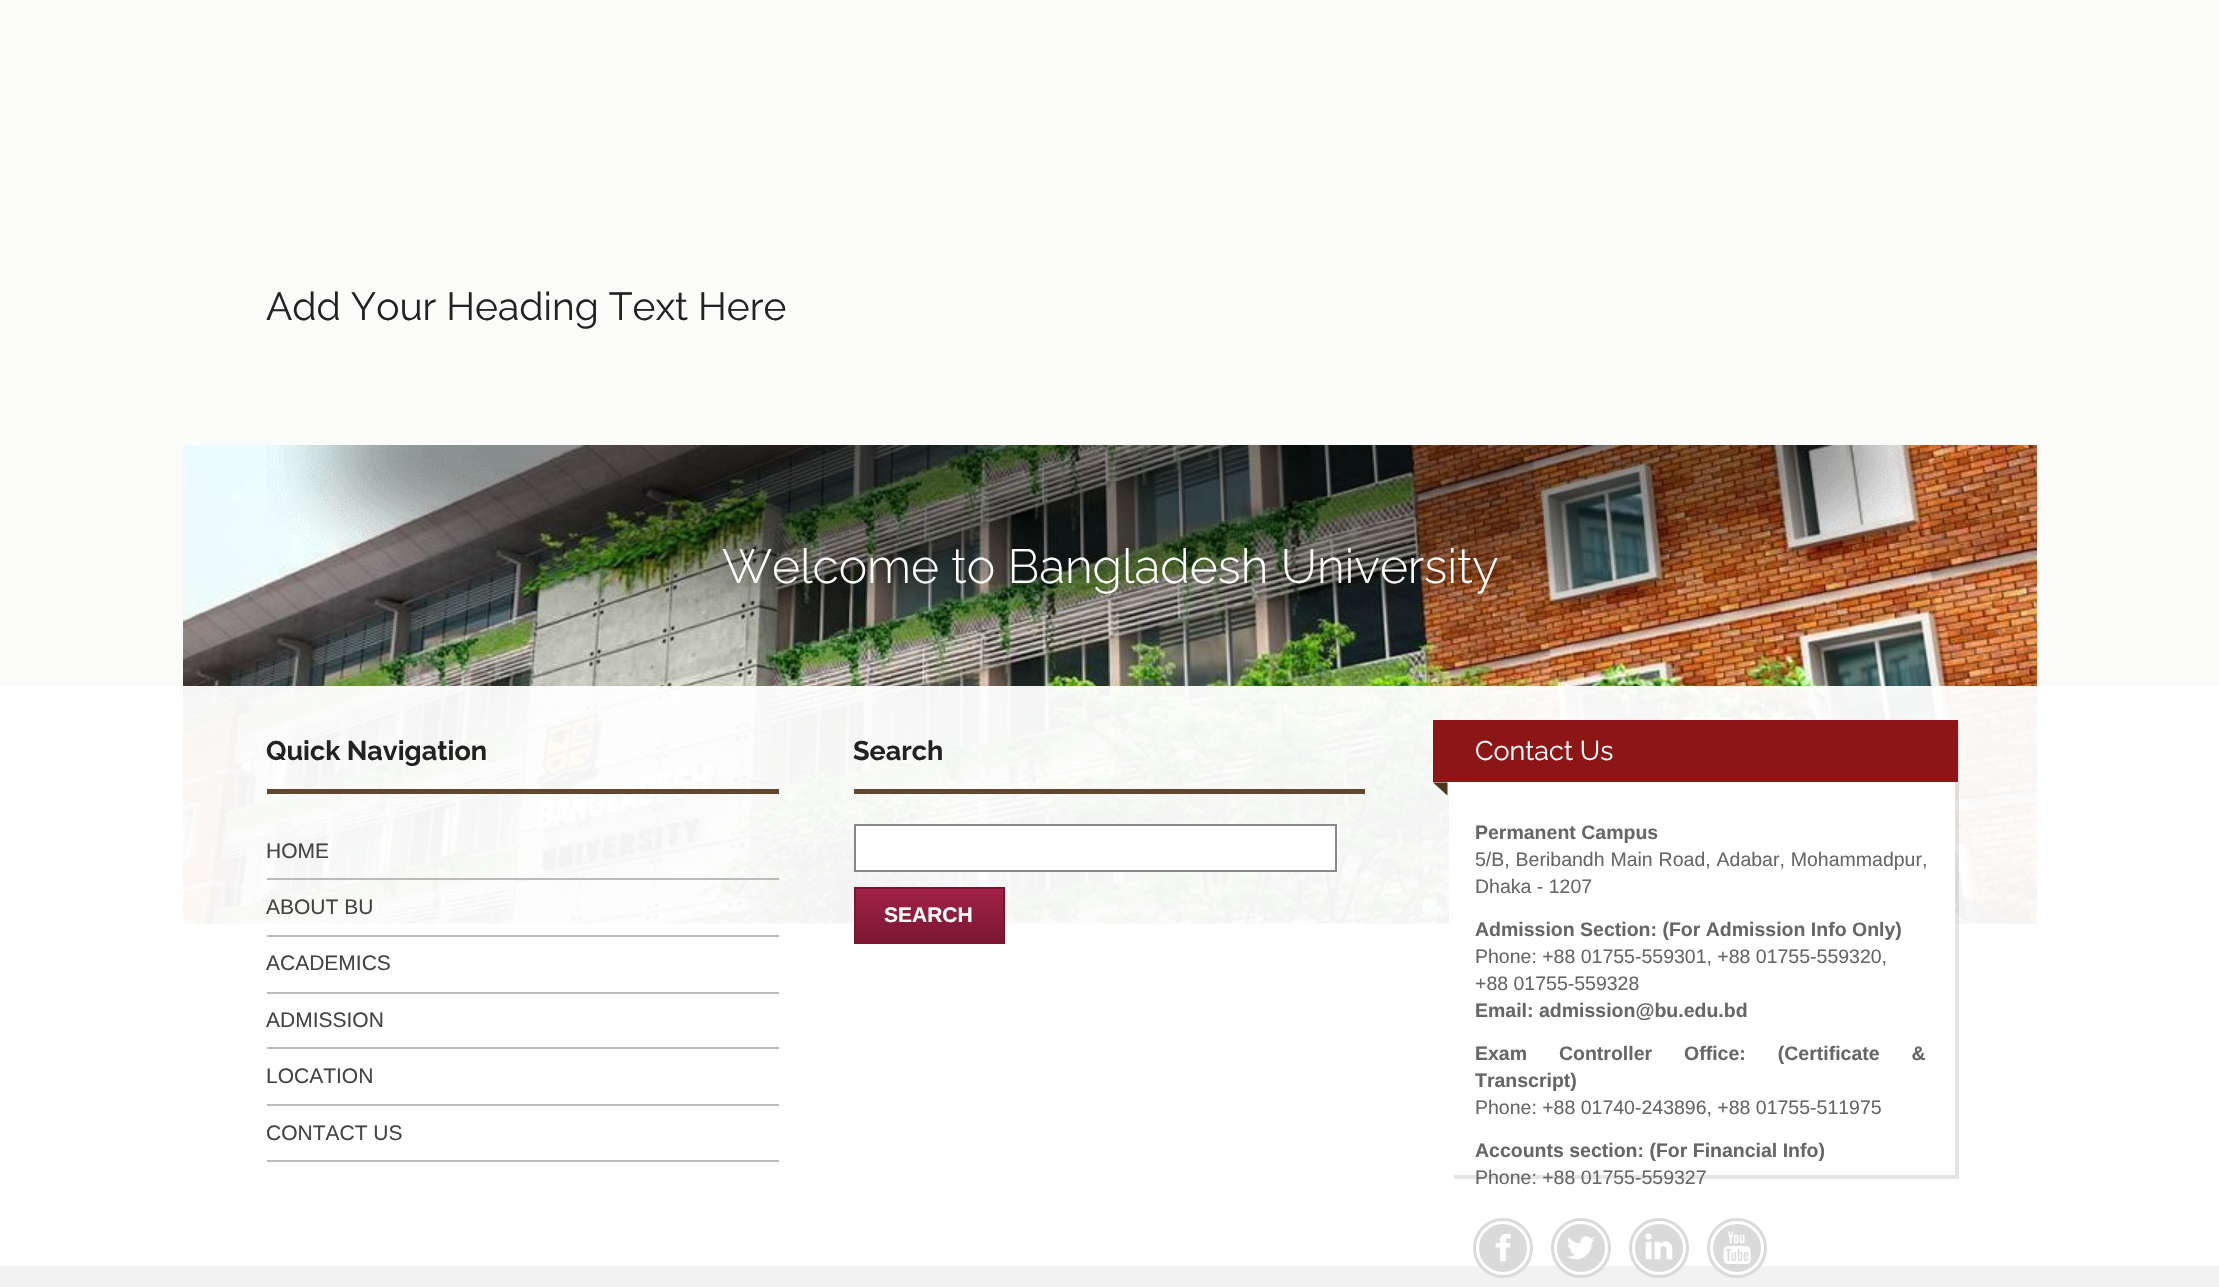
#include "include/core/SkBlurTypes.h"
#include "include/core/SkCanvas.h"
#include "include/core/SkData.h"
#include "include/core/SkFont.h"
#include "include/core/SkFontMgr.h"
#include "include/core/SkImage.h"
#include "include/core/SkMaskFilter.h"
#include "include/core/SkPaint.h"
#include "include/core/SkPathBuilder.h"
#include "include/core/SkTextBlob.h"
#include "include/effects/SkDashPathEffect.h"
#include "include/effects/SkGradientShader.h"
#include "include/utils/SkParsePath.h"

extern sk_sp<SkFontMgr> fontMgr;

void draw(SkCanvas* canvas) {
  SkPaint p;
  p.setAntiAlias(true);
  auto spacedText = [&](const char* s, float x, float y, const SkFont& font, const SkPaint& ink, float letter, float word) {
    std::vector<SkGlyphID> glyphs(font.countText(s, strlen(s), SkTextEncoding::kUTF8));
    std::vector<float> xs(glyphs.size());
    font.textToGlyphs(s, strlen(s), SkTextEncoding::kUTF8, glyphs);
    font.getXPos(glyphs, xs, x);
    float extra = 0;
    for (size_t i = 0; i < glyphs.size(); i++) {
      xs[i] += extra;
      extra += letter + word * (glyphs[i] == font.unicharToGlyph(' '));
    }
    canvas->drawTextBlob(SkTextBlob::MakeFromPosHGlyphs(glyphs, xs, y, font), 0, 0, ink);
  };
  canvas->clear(SkColorSetRGB(251, 251, 249));
  canvas->drawImageRect(SkImages::DeferredFromEncodedData(SkData::MakeFromFileName("images/1.png")), SkRect::MakeLTRB(183, 445, 2037, 925), SkSamplingOptions());
  canvas->drawImageRect(SkImages::DeferredFromEncodedData(SkData::MakeFromFileName("images/2.png")), SkRect::MakeLTRB(267, 445, 1954, 674), SkSamplingOptions());
  p.setColor(SkColorSetARGB(242, 255, 255, 255));
  canvas->drawRect(SkRect::MakeLTRB(0, 686, 2219, 1266), p);
  p.setColor(SkColorSetRGB(98, 70, 45));
  canvas->drawRect(SkRect::MakeLTRB(267, 789, 779, 794), p);
  p.setColor(SkColorSetRGB(187, 187, 187));
  canvas->drawRect(SkRect::MakeLTRB(267, 878, 779, 880), p);
  canvas->drawRect(SkRect::MakeLTRB(267, 935, 779, 937), p);
  canvas->drawRect(SkRect::MakeLTRB(267, 992, 779, 994), p);
  canvas->drawRect(SkRect::MakeLTRB(267, 1047, 779, 1049), p);
  canvas->drawRect(SkRect::MakeLTRB(267, 1104, 779, 1106), p);
  canvas->drawRect(SkRect::MakeLTRB(267, 1160, 779, 1162), p);
  p.setColor(SkColorSetRGB(98, 70, 45));
  canvas->drawRect(SkRect::MakeLTRB(854, 789, 1365, 794), p);
  p.setColor(SK_ColorWHITE);
  canvas->drawRect(SkRect::MakeLTRB(855, 825, 1336, 871), p);
  p.setStyle(SkPaint::kStroke_Style);
  p.setStrokeWidth(2);
  p.setColor(SkColorSetRGB(136, 136, 136));
  canvas->drawRect(SkRect::MakeLTRB(855, 825, 1336, 871), p);
  p.setStyle(SkPaint::kFill_Style);
  {
    const SkColor colors[] = {SkColorSetRGB(164, 35, 71), SkColorSetRGB(122, 22, 50)};
    const float stops[] = {0, 1};
    const SkPoint ends[] = {{929, 888}, {929, 942}};
    p.setShader(SkGradientShader::MakeLinear(ends, colors, stops, 2, SkTileMode::kClamp));
    p.setAlpha(255);
  }
  canvas->drawRect(SkRect::MakeLTRB(856, 889, 1003, 942), p);
  p.setStyle(SkPaint::kStroke_Style);
  p.setShader(nullptr);
  p.setColor(SkColorSetRGB(122, 22, 50));
  canvas->drawRect(SkRect::MakeLTRB(855, 888, 1004, 943), p);
  p.setStyle(SkPaint::kFill_Style);
  p.setColor(SkColorSetARGB(26, 0, 0, 0));
  canvas->drawPath(SkPathBuilder().moveTo(1454, 1174).lineTo(1454, 1179).lineTo(1959, 1179).lineTo(1959, 725).lineTo(1954, 725).lineTo(1954, 1174).close().detach(), p);
  p.setColor(SK_ColorWHITE);
  canvas->drawRect(SkRect::MakeLTRB(1449, 782, 1955, 1175), p);
  canvas->drawImageRect(SkImages::DeferredFromEncodedData(SkData::MakeFromFileName("images/3.png")), SkRect::MakeLTRB(1433, 782, 1448, 796), SkSamplingOptions());
  p.setColor(SkColorSetRGB(140, 21, 21));
  canvas->drawRect(SkRect::MakeLTRB(1433, 720, 1958, 782), p);
  p.setColor(SkColorSetRGB(242, 242, 242));
  canvas->drawRect(SkRect::MakeLTRB(0, 1266, 2219, 1287), p);
  p.setStyle(SkPaint::kStroke_Style);
  p.setStrokeWidth(3);
  p.setColor(SkColorSetRGB(218, 218, 218));
  canvas->drawCircle(1503, 1248, 28.5f, p);
  p.setStyle(SkPaint::kFill_Style);
  canvas->drawCircle(1503, 1248, 27, p);
  canvas->drawImageRect(SkImages::DeferredFromEncodedData(SkData::MakeFromFileName("images/4.png")), SkRect::MakeLTRB(1495, 1233, 1511, 1262), SkSamplingOptions());
  p.setStyle(SkPaint::kStroke_Style);
  p.setColor(SK_ColorWHITE);
  canvas->drawCircle(1503, 1248, 25.5f, p);
  p.setColor(SkColorSetRGB(218, 218, 218));
  canvas->drawCircle(1581, 1248, 28.5f, p);
  p.setStyle(SkPaint::kFill_Style);
  canvas->drawCircle(1581, 1248, 27, p);
  canvas->drawImageRect(SkImages::DeferredFromEncodedData(SkData::MakeFromFileName("images/5.png")), SkRect::MakeLTRB(1567, 1236, 1595, 1260), SkSamplingOptions());
  p.setStyle(SkPaint::kStroke_Style);
  p.setColor(SK_ColorWHITE);
  canvas->drawCircle(1581, 1248, 25.5f, p);
  p.setColor(SkColorSetRGB(218, 218, 218));
  canvas->drawCircle(1659, 1248, 28.5f, p);
  p.setStyle(SkPaint::kFill_Style);
  canvas->drawCircle(1659, 1248, 27, p);
  canvas->drawImageRect(SkImages::DeferredFromEncodedData(SkData::MakeFromFileName("images/6.png")), SkRect::MakeLTRB(1645, 1233, 1673, 1260), SkSamplingOptions());
  p.setStyle(SkPaint::kStroke_Style);
  p.setColor(SK_ColorWHITE);
  canvas->drawCircle(1659, 1248, 25.5f, p);
  p.setColor(SkColorSetRGB(218, 218, 218));
  canvas->drawCircle(1737, 1248, 28.5f, p);
  p.setStyle(SkPaint::kFill_Style);
  canvas->drawCircle(1737, 1248, 27, p);
  canvas->drawImageRect(SkImages::DeferredFromEncodedData(SkData::MakeFromFileName("images/7.png")), SkRect::MakeLTRB(1723, 1231, 1751, 1264), SkSamplingOptions());
  p.setStyle(SkPaint::kStroke_Style);
  p.setColor(SK_ColorWHITE);
  canvas->drawCircle(1737, 1248, 25.5f, p);
  SkFont font1(fontMgr->matchFamilyStyle("Raleway", SkFontStyle::Normal()), 39);
  font1.setSubpixel(true);
  p.setStyle(SkPaint::kFill_Style);
  p.setColor(SkColorSetRGB(34, 34, 34));
  canvas->drawString("Add Your Heading Text Here", 266, 320, font1, p);
  SkFont font2(fontMgr->matchFamilyStyle("Raleway", SkFontStyle(300, SkFontStyle::kNormal_Width, SkFontStyle::kUpright_Slant)), 48);
  font2.setSubpixel(true);
  p.setColor(SK_ColorWHITE);
  canvas->drawString("Welcome to Bangladesh University", 722, 583, font2, p);
  SkFont font3(fontMgr->matchFamilyStyle("Raleway", SkFontStyle::Bold()), 27);
  font3.setSubpixel(true);
  p.setColor(SkColorSetRGB(34, 34, 34));
  canvas->drawString("Quick Navigation", 266, 760, font3, p);
  SkFont font4(fontMgr->matchFamilyStyle("Liberation Sans", SkFontStyle::Normal()), 21);
  font4.setSubpixel(true);
  p.setColor(SkColorSetRGB(68, 68, 68));
  canvas->drawString("HOME", 266, 858, font4, p);
  canvas->drawString("ABOUT BU", 266, 914, font4, p);
  canvas->drawString("ACADEMICS", 266, 970, font4, p);
  canvas->drawString("ADMISSION", 266, 1027, font4, p);
  canvas->drawString("LOCATION", 266, 1083, font4, p);
  canvas->drawString("CONTACT US", 266, 1140, font4, p);
  p.setColor(SkColorSetRGB(34, 34, 34));
  canvas->drawString("Search", 853, 760, font3, p);
  SkFont font5(fontMgr->matchFamilyStyle("Liberation Sans", SkFontStyle::Bold()), 21);
  font5.setSubpixel(true);
  p.setColor(SK_ColorWHITE);
  canvas->drawString("SEARCH", 884, 922, font5, p);
  SkFont font6(fontMgr->matchFamilyStyle("Raleway", SkFontStyle::Normal()), 27);
  font6.setSubpixel(true);
  canvas->drawString("Contact Us", 1475, 760, font6, p);
  SkFont font7(fontMgr->matchFamilyStyle("Liberation Sans", SkFontStyle::Bold()), 19.5f);
  font7.setSubpixel(true);
  p.setColor(SkColorSetRGB(102, 102, 102));
  canvas->drawString("Permanent Campus", 1475, 839, font7, p);
  SkFont font8(fontMgr->matchFamilyStyle("Liberation Sans", SkFontStyle::Normal()), 19.5f);
  font8.setSubpixel(true);
  spacedText("5/B, Beribandh Main Road, Adabar, Mohammadpur,", 1475, 866, font8, p, 0, 0.5f);
  canvas->drawString("Dhaka - 1207", 1475, 893, font8, p);
  canvas->drawString("Admission Section: (For Admission Info Only)", 1475, 936, font7, p);
  canvas->drawString("Phone: +88 01755-559301, +88 01755-559320,", 1475, 963, font8, p);
  canvas->drawString("+88 01755-559328", 1475, 990, font8, p);
  canvas->drawString("Email: admission@bu.edu.bd", 1475, 1017, font7, p);
  spacedText("Exam Controller Office: (Certificate &", 1475, 1060, font7, p, 0, 26.5f);
  canvas->drawString("Transcript)", 1475, 1087, font7, p);
  canvas->drawString("Phone: +88 01740-243896, +88 01755-511975", 1475, 1114, font8, p);
  canvas->drawString("Accounts section: (For Financial Info)", 1475, 1157, font7, p);
  canvas->drawString("Phone: +88 01755-559327", 1475, 1184, font8, p);
}
